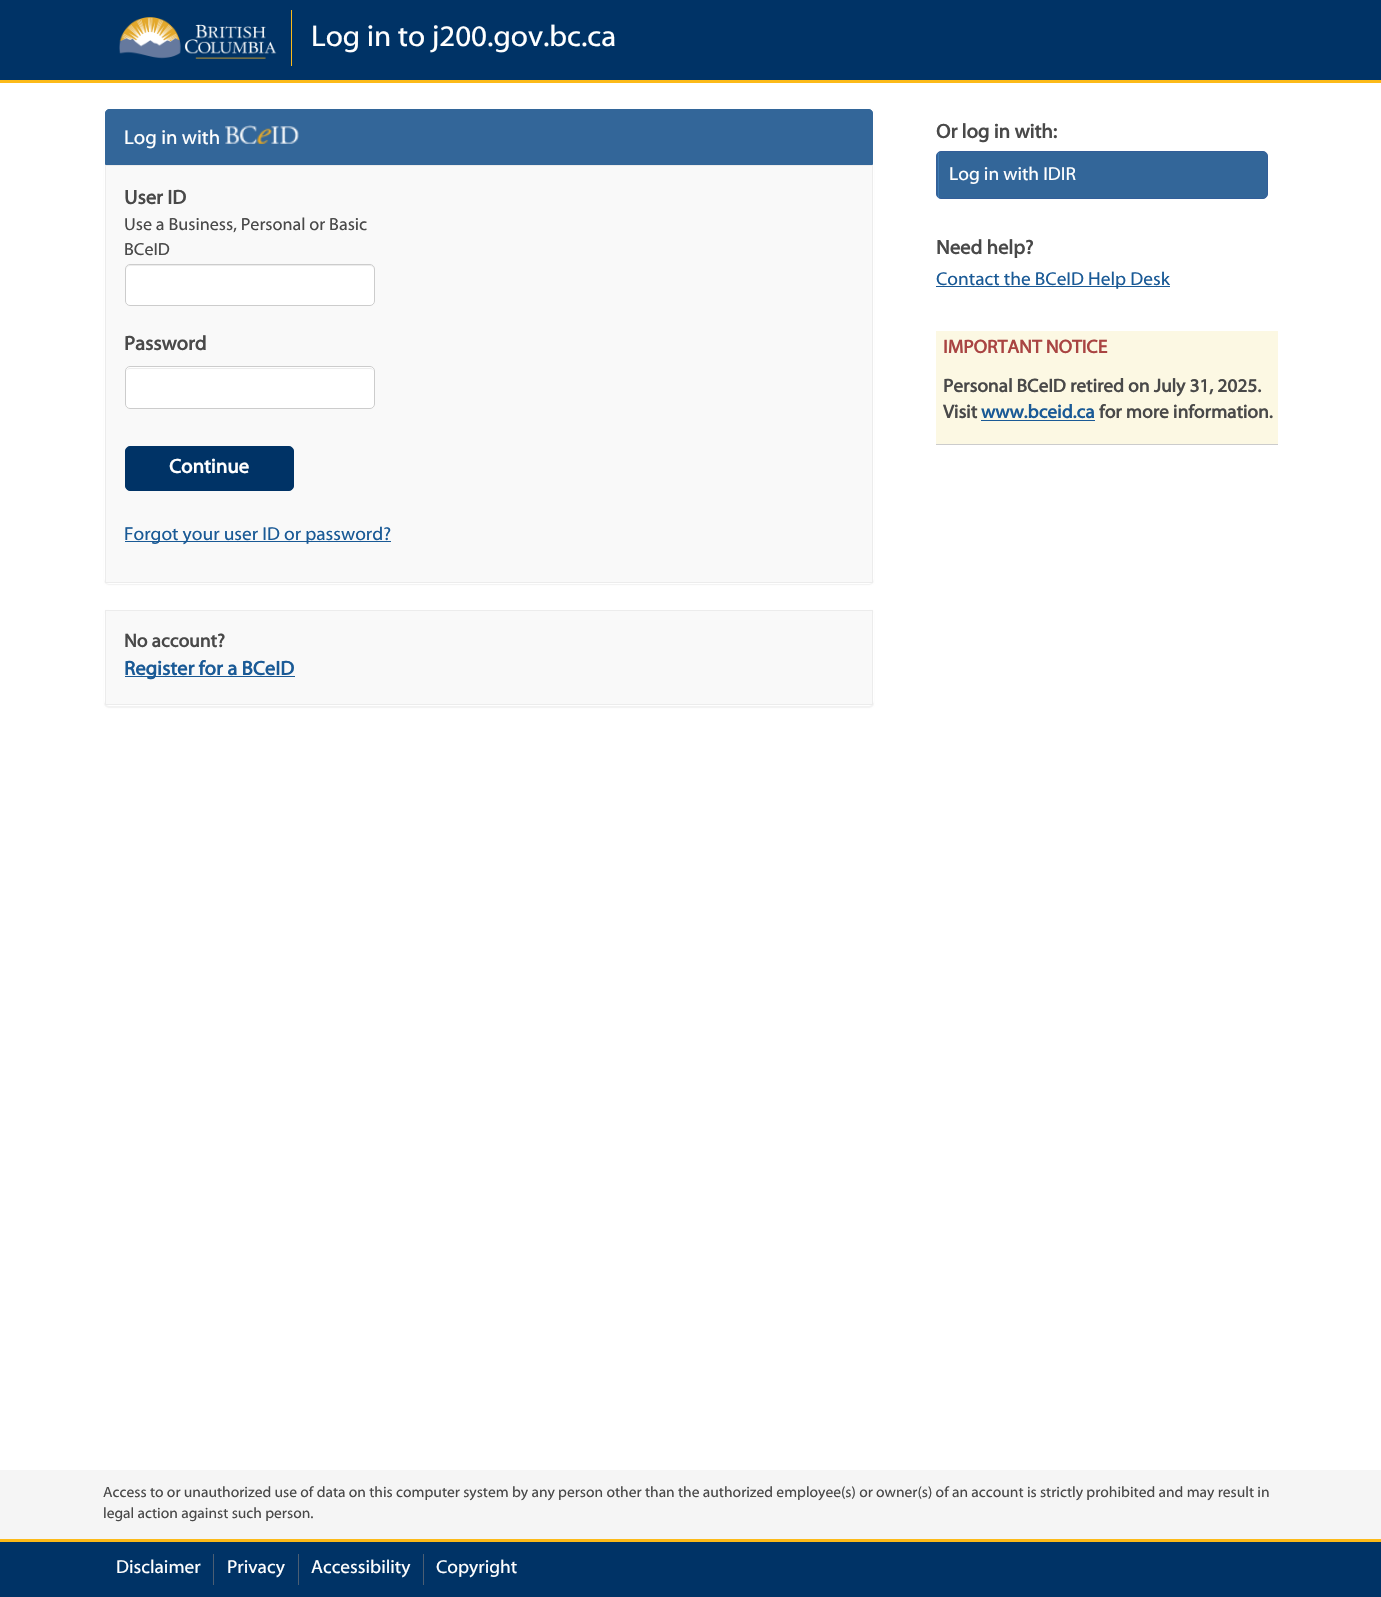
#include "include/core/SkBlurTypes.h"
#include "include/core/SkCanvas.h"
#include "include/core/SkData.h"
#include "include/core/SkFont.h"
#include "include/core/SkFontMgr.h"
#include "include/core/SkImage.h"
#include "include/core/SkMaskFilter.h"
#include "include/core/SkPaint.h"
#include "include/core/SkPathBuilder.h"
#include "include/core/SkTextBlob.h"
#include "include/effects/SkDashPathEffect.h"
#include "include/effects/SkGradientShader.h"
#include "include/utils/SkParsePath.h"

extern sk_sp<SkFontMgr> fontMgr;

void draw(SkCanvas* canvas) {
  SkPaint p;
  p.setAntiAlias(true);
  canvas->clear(SK_ColorWHITE);
  p.setColor(SkColorSetRGB(0, 51, 102));
  canvas->drawRect(SkRect::MakeLTRB(0, 0, 1381, 80), p);
  p.setColor(SkColorSetRGB(252, 186, 25));
  canvas->drawRect(SkRect::MakeLTRB(0, 80, 1381, 83), p);
  canvas->drawImageRect(SkImages::DeferredFromEncodedData(SkData::MakeFromFileName("images/1.png")), SkRect::MakeLTRB(119, 17, 277, 59), SkSamplingOptions());
  canvas->drawRect(SkRect::MakeLTRB(291, 10, 292, 66), p);
  p.setColor(SkColorSetARGB(13, 0, 0, 0));
  p.setMaskFilter(SkMaskFilter::MakeBlur(kNormal_SkBlurStyle, 0.5f));
  canvas->drawRoundRect(SkRect::MakeLTRB(104, 109, 874, 585), 5, 5, p);
  p.setMaskFilter(nullptr);
  p.setColor(SK_ColorWHITE);
  canvas->drawRoundRect(SkRect::MakeLTRB(104, 108, 874, 584), 5, 5, p);
  p.setColor(SkColorSetRGB(51, 102, 153));
  canvas->drawPath(SkPathBuilder().moveTo(109, 109.5f).lineTo(869, 109.5f).cubicTo(871, 109.5f, 872.5f, 111, 872.5f, 113).lineTo(872.5f, 164.5f).lineTo(105.5f, 164.5f).lineTo(105.5f, 113).cubicTo(105.5f, 111, 107, 109.5f, 109, 109.5f).close().detach(), p);
  p.setStyle(SkPaint::kStroke_Style);
  p.setStrokeWidth(1);
  canvas->drawPath(SkPathBuilder().moveTo(109, 109.5f).lineTo(869, 109.5f).cubicTo(871, 109.5f, 872.5f, 111, 872.5f, 113).lineTo(872.5f, 164.5f).lineTo(105.5f, 164.5f).lineTo(105.5f, 113).cubicTo(105.5f, 111, 107, 109.5f, 109, 109.5f).close().detach(), p);
  canvas->drawImageRect(SkImages::DeferredFromEncodedData(SkData::MakeFromFileName("images/2.png")), SkRect::MakeLTRB(225, 125, 299, 144), SkSamplingOptions());
  p.setStyle(SkPaint::kFill_Style);
  p.setColor(SkColorSetRGB(249, 249, 249));
  canvas->drawRect(SkRect::MakeLTRB(105.5f, 165.5f, 872.5f, 582.5f), p);
  p.setStyle(SkPaint::kStroke_Style);
  p.setColor(SkColorSetRGB(236, 236, 236));
  canvas->drawRect(SkRect::MakeLTRB(105.5f, 165.5f, 872.5f, 582.5f), p);
  p.setStyle(SkPaint::kFill_Style);
  p.setColor(SK_ColorWHITE);
  canvas->drawRoundRect(SkRect::MakeLTRB(125, 264, 375, 306), 5, 5, p);
  p.setColor(SkColorSetRGB(236, 236, 236));
  canvas->drawPath(SkPathBuilder().moveTo(130, 266).lineTo(370, 266).cubicTo(372, 266, 374, 268, 374, 270).lineTo(374, 269).cubicTo(374, 267, 372, 265, 370, 265).lineTo(130, 265).cubicTo(128, 265, 126, 267, 126, 269).lineTo(126, 270).cubicTo(126, 268, 128, 266, 130, 266).close().detach(), p);
  p.setStyle(SkPaint::kStroke_Style);
  p.setColor(SkColorSetRGB(204, 204, 204));
  canvas->drawRoundRect(SkRect::MakeLTRB(125.5f, 264.5f, 374.5f, 305.5f), 4.5f, 4.5f, p);
  p.setStyle(SkPaint::kFill_Style);
  p.setColor(SK_ColorWHITE);
  canvas->drawRoundRect(SkRect::MakeLTRB(125, 366, 375, 409), 5, 5, p);
  p.setColor(SkColorSetRGB(236, 236, 236));
  canvas->drawPath(SkPathBuilder().moveTo(130, 369).lineTo(370, 369).cubicTo(372, 369, 374, 370, 374, 372).cubicTo(374, 370, 372, 368, 370, 368).lineTo(130, 368).cubicTo(128, 368, 126, 370, 126, 372).cubicTo(126, 370, 128, 369, 130, 369).close().detach(), p);
  p.setStyle(SkPaint::kStroke_Style);
  p.setColor(SkColorSetRGB(204, 204, 204));
  canvas->drawRoundRect(SkRect::MakeLTRB(125.5f, 366.5f, 374.5f, 408.5f), 4.5f, 4.5f, p);
  p.setStyle(SkPaint::kFill_Style);
  p.setColor(SkColorSetRGB(0, 51, 102));
  canvas->drawRoundRect(SkRect::MakeLTRB(125.5f, 446.5f, 293.5f, 490.5f), 4.5f, 4.5f, p);
  p.setStyle(SkPaint::kStroke_Style);
  canvas->drawRoundRect(SkRect::MakeLTRB(125.5f, 446.5f, 293.5f, 490.5f), 4.5f, 4.5f, p);
  p.setStyle(SkPaint::kFill_Style);
  p.setColor(SkColorSetRGB(26, 90, 150));
  canvas->drawRect(SkRect::MakeLTRB(125, 541, 391, 542), p);
  p.setColor(SkColorSetARGB(13, 0, 0, 0));
  p.setMaskFilter(SkMaskFilter::MakeBlur(kNormal_SkBlurStyle, 0.5f));
  canvas->drawRoundRect(SkRect::MakeLTRB(104, 610, 874, 708), 5, 5, p);
  p.setMaskFilter(nullptr);
  p.setColor(SK_ColorWHITE);
  canvas->drawRoundRect(SkRect::MakeLTRB(104, 609, 874, 706), 5, 5, p);
  p.setColor(SkColorSetRGB(249, 249, 249));
  canvas->drawRect(SkRect::MakeLTRB(105.5f, 610.5f, 872.5f, 704.5f), p);
  p.setStyle(SkPaint::kStroke_Style);
  p.setColor(SkColorSetRGB(236, 236, 236));
  canvas->drawRect(SkRect::MakeLTRB(105.5f, 610.5f, 872.5f, 704.5f), p);
  p.setStyle(SkPaint::kFill_Style);
  p.setColor(SkColorSetRGB(26, 90, 150));
  canvas->drawRect(SkRect::MakeLTRB(125, 676, 295, 677), p);
  p.setColor(SkColorSetRGB(51, 102, 153));
  canvas->drawRoundRect(SkRect::MakeLTRB(936.5f, 151.5f, 1267.5f, 198.5f), 4.5f, 4.5f, p);
  p.setStyle(SkPaint::kStroke_Style);
  p.setColor(SkColorSetRGB(51, 94, 153));
  canvas->drawRoundRect(SkRect::MakeLTRB(936.5f, 151.5f, 1267.5f, 198.5f), 4.5f, 4.5f, p);
  p.setStyle(SkPaint::kFill_Style);
  p.setColor(SkColorSetRGB(61, 122, 182));
  canvas->drawRect(SkRect::MakeLTRB(938, 153, 939, 198), p);
  p.setColor(SkColorSetRGB(26, 90, 150));
  canvas->drawRect(SkRect::MakeLTRB(936, 286, 1170, 287), p);
  p.setColor(SkColorSetRGB(252, 248, 227));
  canvas->drawRect(SkRect::MakeLTRB(936, 331, 1278, 444), p);
  p.setColor(SkColorSetRGB(204, 204, 204));
  canvas->drawRect(SkRect::MakeLTRB(936, 444, 1278, 445), p);
  p.setColor(SkColorSetRGB(26, 90, 150));
  canvas->drawRect(SkRect::MakeLTRB(981, 420, 1095, 421), p);
  p.setColor(SkColorSetRGB(245, 245, 245));
  canvas->drawRect(SkRect::MakeLTRB(0, 1470, 1381, 1539), p);
  p.setColor(SkColorSetRGB(0, 51, 102));
  canvas->drawRect(SkRect::MakeLTRB(0, 1542, 1381, 1597), p);
  p.setColor(SkColorSetRGB(252, 186, 25));
  canvas->drawRect(SkRect::MakeLTRB(0, 1539, 1381, 1542), p);
  p.setColor(SkColorSetRGB(75, 94, 115));
  canvas->drawRect(SkRect::MakeLTRB(213, 1554, 214, 1585), p);
  canvas->drawRect(SkRect::MakeLTRB(298, 1554, 299, 1585), p);
  canvas->drawRect(SkRect::MakeLTRB(423, 1554, 424, 1585), p);
  SkFont font1(fontMgr->matchFamilyStyle("Myriad", SkFontStyle::Normal()), 30);
  font1.setSubpixel(true);
  p.setColor(SK_ColorWHITE);
  canvas->drawString("Log in to j200.gov.bc.ca", 311, 46, font1, p);
  SkFont font2(fontMgr->matchFamilyStyle("Myriad", SkFontStyle::Normal()), 20);
  font2.setSubpixel(true);
  canvas->drawString("Log in with", 124, 144, font2, p);
  SkFont font3(fontMgr->matchFamilyStyle("Myriad", SkFontStyle::Bold()), 20);
  font3.setSubpixel(true);
  p.setColor(SkColorSetRGB(73, 73, 73));
  canvas->drawString("User ID", 124, 204, font3, p);
  SkFont font4(fontMgr->matchFamilyStyle("Myriad", SkFontStyle::Normal()), 17.5f);
  font4.setSubpixel(true);
  canvas->drawString("Use a Business, Personal or Basic", 124, 230, font4, p);
  canvas->drawString("BCeID", 124, 255, font4, p);
  canvas->drawString("Password", 124, 350, font3, p);
  p.setColor(SK_ColorWHITE);
  canvas->drawString("Continue", 169, 473, font3, p);
  SkFont font5(fontMgr->matchFamilyStyle("Myriad", SkFontStyle::Normal()), 18.75f);
  font5.setSubpixel(true);
  p.setColor(SkColorSetRGB(26, 90, 150));
  canvas->drawString("Forgot your user ID or password?", 124, 540, font5, p);
  SkFont font6(fontMgr->matchFamilyStyle("Myriad", SkFontStyle::Bold()), 18.75f);
  font6.setSubpixel(true);
  p.setColor(SkColorSetRGB(73, 73, 73));
  canvas->drawString("No account?", 124, 647, font6, p);
  p.setColor(SkColorSetRGB(26, 90, 150));
  canvas->drawString("Register for a BCeID", 124, 675, font3, p);
  p.setColor(SkColorSetRGB(73, 73, 73));
  canvas->drawString("Or log in with:", 936, 138, font3, p);
  p.setColor(SK_ColorWHITE);
  canvas->drawString("Log in with IDIR", 949, 180, font5, p);
  p.setColor(SkColorSetRGB(73, 73, 73));
  canvas->drawString("Need help?", 936, 254, font3, p);
  p.setColor(SkColorSetRGB(26, 90, 150));
  canvas->drawString("Contact the BCeID Help Desk", 936, 285, font5, p);
  p.setColor(SkColorSetRGB(169, 68, 66));
  canvas->drawString("IMPORTANT NOTICE", 943, 353, font6, p);
  p.setColor(SkColorSetRGB(73, 73, 73));
  canvas->drawString("Personal BCeID retired on July 31, 2025.", 943, 392, font6, p);
  canvas->drawString("Visit", 943, 418, font6, p);
  p.setColor(SkColorSetRGB(26, 90, 150));
  canvas->drawString("www.bceid.ca", 981, 418, font6, p);
  p.setColor(SkColorSetRGB(73, 73, 73));
  canvas->drawString("for more information.", 1099, 418, font6, p);
  SkFont font7(fontMgr->matchFamilyStyle("Myriad", SkFontStyle::Normal()), 15);
  font7.setSubpixel(true);
  canvas->drawString("Access to or unauthorized use of data on this computer system by any person other than the authorized employee(s) or owner(s) of an account is strictly prohibited and may result in", 103, 1497, font7, p);
  canvas->drawString("legal action against such person.", 103, 1518, font7, p);
  p.setColor(SK_ColorWHITE);
  canvas->drawString("Disclaimer", 116, 1573, font5, p);
  canvas->drawString("Privacy", 227, 1573, font5, p);
  canvas->drawString("Accessibility", 311, 1573, font5, p);
  canvas->drawString("Copyright", 436, 1573, font5, p);
}
